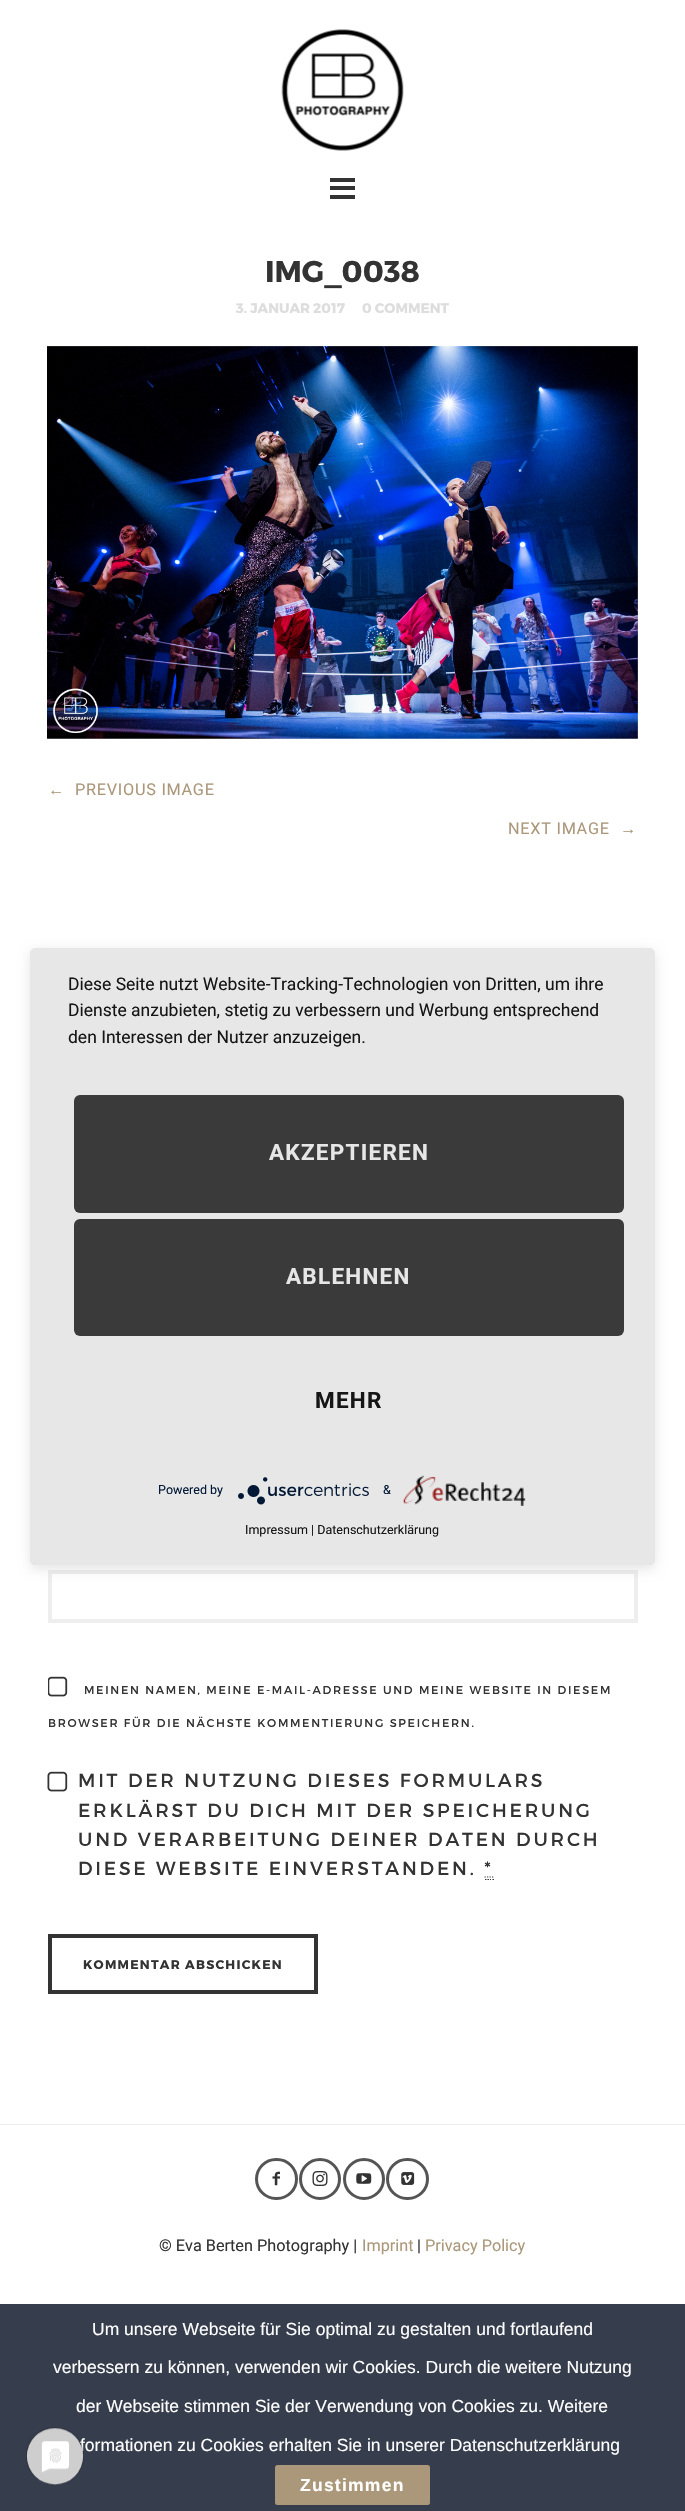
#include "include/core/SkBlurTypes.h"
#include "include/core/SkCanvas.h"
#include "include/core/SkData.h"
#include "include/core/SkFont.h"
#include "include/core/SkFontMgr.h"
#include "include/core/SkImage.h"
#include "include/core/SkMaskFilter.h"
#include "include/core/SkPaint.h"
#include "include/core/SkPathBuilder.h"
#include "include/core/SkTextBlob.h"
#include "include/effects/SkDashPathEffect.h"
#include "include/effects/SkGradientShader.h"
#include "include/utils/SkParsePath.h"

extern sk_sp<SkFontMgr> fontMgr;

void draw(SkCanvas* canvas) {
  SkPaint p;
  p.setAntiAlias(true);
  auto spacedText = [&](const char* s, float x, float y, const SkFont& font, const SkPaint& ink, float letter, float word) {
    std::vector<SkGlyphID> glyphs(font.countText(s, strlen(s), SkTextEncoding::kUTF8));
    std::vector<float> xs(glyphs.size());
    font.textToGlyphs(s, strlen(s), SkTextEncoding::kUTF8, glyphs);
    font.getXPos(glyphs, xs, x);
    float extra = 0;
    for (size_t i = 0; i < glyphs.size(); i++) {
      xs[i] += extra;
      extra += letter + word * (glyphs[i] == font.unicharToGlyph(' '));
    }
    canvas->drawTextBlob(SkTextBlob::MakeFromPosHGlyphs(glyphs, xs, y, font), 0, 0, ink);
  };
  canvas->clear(SK_ColorWHITE);
  canvas->drawImageRect(SkImages::DeferredFromEncodedData(SkData::MakeFromFileName("images/1.png")), SkRect::MakeLTRB(281, 29, 404, 151), SkSamplingOptions());
  p.setColor(SkColorSetRGB(51, 51, 51));
  canvas->drawRect(SkRect::MakeLTRB(330, 186, 355, 190), p);
  canvas->drawRect(SkRect::MakeLTRB(330, 178, 355, 182), p);
  canvas->drawRect(SkRect::MakeLTRB(330, 195, 355, 199), p);
  canvas->drawImageRect(SkImages::DeferredFromEncodedData(SkData::MakeFromFileName("images/2.png")), SkRect::MakeLTRB(47, 346, 638, 739), SkSamplingOptions());
  p.setStyle(SkPaint::kStroke_Style);
  p.setStrokeWidth(4);
  p.setColor(SkColorSetRGB(238, 238, 238));
  canvas->drawRect(SkRect::MakeLTRB(50, 1572, 636, 1621), p);
  canvas->drawImageRect(SkImages::DeferredFromEncodedData(SkData::MakeFromFileName("images/3.png")), SkRect::MakeLTRB(48, 1676, 68, 1697), SkSamplingOptions());
  canvas->drawImageRect(SkImages::DeferredFromEncodedData(SkData::MakeFromFileName("images/4.png")), SkRect::MakeLTRB(47, 1771, 68, 1792), SkSamplingOptions());
  p.setStrokeWidth(1.2f);
  p.setColor(SkColorSetRGB(51, 51, 51));
  p.setPathEffect(SkDashPathEffect::Make({{1.25f, 1.25f}}, 0));
  canvas->drawPath(SkPathBuilder().moveTo(484.5f, 1877).lineTo(494, 1877).detach(), p);
  p.setPathEffect(nullptr);
  canvas->drawPath(SkPathBuilder().moveTo(485, 1879.5f).lineTo(486.5f, 1879.5f).moveTo(487.5f, 1879.5f).lineTo(489, 1879.5f).moveTo(490, 1879.5f).lineTo(491, 1879.5f).moveTo(492.5f, 1879.5f).lineTo(494, 1879.5f).detach(), p);
  p.setStrokeWidth(4);
  canvas->drawRect(SkRect::MakeLTRB(50, 1936, 316, 1992), p);
  p.setStyle(SkPaint::kFill_Style);
  p.setColor(SkColorSetRGB(238, 238, 238));
  canvas->drawRect(SkRect::MakeLTRB(0, 2124, 685, 2125), p);
  p.setStyle(SkPaint::kStroke_Style);
  p.setStrokeWidth(3);
  p.setColor(SkColorSetRGB(85, 85, 85));
  canvas->drawRoundRect(SkRect::MakeLTRB(256.5f, 2159.5f, 296.5f, 2198.5f), 19.5f, 19.5f, p);
  canvas->drawImageRect(SkImages::DeferredFromEncodedData(SkData::MakeFromFileName("images/5.png")), SkRect::MakeLTRB(272, 2171, 280, 2186), SkSamplingOptions());
  canvas->drawCircle(320, 2179, 19.5f, p);
  canvas->drawImageRect(SkImages::DeferredFromEncodedData(SkData::MakeFromFileName("images/6.png")), SkRect::MakeLTRB(312, 2171, 328, 2186), SkSamplingOptions());
  canvas->drawCircle(364, 2179, 19.5f, p);
  canvas->drawImageRect(SkImages::DeferredFromEncodedData(SkData::MakeFromFileName("images/7.png")), SkRect::MakeLTRB(356, 2173, 372, 2184), SkSamplingOptions());
  canvas->drawRoundRect(SkRect::MakeLTRB(387.5f, 2159.5f, 427.5f, 2198.5f), 19.5f, 19.5f, p);
  canvas->drawImageRect(SkImages::DeferredFromEncodedData(SkData::MakeFromFileName("images/8.png")), SkRect::MakeLTRB(401, 2172, 415, 2185), SkSamplingOptions());
  p.setStyle(SkPaint::kFill_Style);
  p.setColor(SkColorSetARGB(26, 0, 0, 0));
  p.setMaskFilter(SkMaskFilter::MakeBlur(kNormal_SkBlurStyle, 6));
  canvas->drawRoundRect(SkRect::MakeLTRB(30, 951, 655, 1569), 6, 6, p);
  p.setMaskFilter(nullptr);
  canvas->save();
  canvas->clipPath(SkPathBuilder().moveTo(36, 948).lineTo(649, 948).cubicTo(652.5f, 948, 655, 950.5f, 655, 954).lineTo(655, 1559).cubicTo(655, 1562.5f, 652.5f, 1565, 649, 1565).lineTo(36, 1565).cubicTo(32.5f, 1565, 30, 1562.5f, 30, 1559).lineTo(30, 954).cubicTo(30, 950.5f, 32.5f, 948, 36, 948).close().detach(), true);
  p.setColor(SkColorSetARGB(77, 0, 0, 0));
  p.setMaskFilter(SkMaskFilter::MakeBlur(kNormal_SkBlurStyle, 22.5f));
  canvas->drawRect(SkRect::MakeLTRB(30, 955, 655, 1573), p);
  p.setMaskFilter(nullptr);
  canvas->restore();
  p.setColor(SkColorSetRGB(231, 231, 231));
  canvas->drawRoundRect(SkRect::MakeLTRB(30, 948, 655, 1565), 6, 6, p);
  p.setColor(SkColorSetRGB(58, 58, 58));
  canvas->drawRoundRect(SkRect::MakeLTRB(74, 1095, 624, 1213), 6, 6, p);
  canvas->drawRoundRect(SkRect::MakeLTRB(74, 1219, 624, 1336), 6, 6, p);
  canvas->drawImageRect(SkImages::DeferredFromEncodedData(SkData::MakeFromFileName("images/9.png")), SkRect::MakeLTRB(238, 1477, 369, 1505), SkSamplingOptions());
  canvas->drawImageRect(SkImages::DeferredFromEncodedData(SkData::MakeFromFileName("images/10.png")), SkRect::MakeLTRB(403, 1475, 526, 1506), SkSamplingOptions());
  p.setColor(SkColorSetRGB(54, 61, 77));
  canvas->drawRect(SkRect::MakeLTRB(0, 2304, 685, 2511), p);
  p.setColor(SkColorSetRGB(171, 151, 122));
  canvas->drawRoundRect(SkRect::MakeLTRB(275, 2465, 430, 2505), 2.5f, 2.5f, p);
  SkFont font1(fontMgr->matchFamilyStyle("Montserrat", SkFontStyle::Bold()), 30);
  font1.setSubpixel(true);
  p.setColor(SkColorSetRGB(51, 51, 51));
  canvas->drawString("IMG_0038", 265, 282, font1, p);
  SkFont font2(fontMgr->matchFamilyStyle("Montserrat", SkFontStyle::Bold()), 13.75f);
  font2.setSubpixel(true);
  p.setColor(SkColorSetRGB(221, 221, 221));
  canvas->drawString("3. JANUAR 2017", 236, 313, font2, p);
  canvas->drawString("0 COMMENT", 362, 313, font2, p);
  SkFont font3(fontMgr->matchFamilyStyle("Liberation Sans", SkFontStyle::Normal()), 16.25f);
  font3.setSubpixel(true);
  p.setColor(SkColorSetRGB(171, 151, 122));
  spacedText("←", 48, 795, font3, p, 0.75f, 0);
  SkFont font4(fontMgr->matchFamilyStyle("Roboto", SkFontStyle::Normal()), 16.25f);
  font4.setSubpixel(true);
  spacedText("PREVIOUS IMAGE", 75, 795, font4, p, 0.75f, 0);
  spacedText("NEXT IMAGE", 508, 834, font4, p, 0.75f, 0);
  spacedText("→", 620, 834, font3, p, 0.75f, 0);
  SkFont font5(fontMgr->matchFamilyStyle("Montserrat", SkFontStyle::Normal()), 11.25f);
  font5.setSubpixel(true);
  p.setColor(SkColorSetRGB(51, 51, 51));
  spacedText("MEINEN NAMEN, MEINE E-MAIL-ADRESSE UND MEINE WEBSITE IN DIESEM", 84, 1694, font5, p, 1.7f, 0);
  spacedText("BROWSER FÜR DIE NÄCHSTE KOMMENTIERUNG SPEICHERN.", 48, 1727, font5, p, 1.7f, 0);
  SkFont font6(fontMgr->matchFamilyStyle("Montserrat", SkFontStyle::Normal()), 18.75f);
  font6.setSubpixel(true);
  spacedText("MIT DER NUTZUNG DIESES FORMULARS", 78, 1787, font6, p, 2.8f, 0);
  spacedText("ERKLÄRST DU DICH MIT DER SPEICHERUNG", 78, 1817, font6, p, 2.8f, 0);
  spacedText("UND VERARBEITUNG DEINER DATEN DURCH", 78, 1846, font6, p, 2.8f, 0);
  spacedText("DIESE WEBSITE EINVERSTANDEN. *", 78, 1875, font6, p, 2.8f, 0);
  SkFont font7(fontMgr->matchFamilyStyle("Montserrat", SkFontStyle::Bold()), 12.5f);
  font7.setSubpixel(true);
  spacedText("KOMMENTAR ABSCHICKEN", 83, 1969, font7, p, 1.25f, 0);
  canvas->drawString("© Eva Berten Photography |", 159, 2251, font4, p);
  p.setColor(SkColorSetRGB(171, 151, 122));
  canvas->drawString("Imprint", 362, 2251, font4, p);
  p.setColor(SkColorSetRGB(51, 51, 51));
  canvas->drawString("|", 417, 2251, font4, p);
  p.setColor(SkColorSetRGB(171, 151, 122));
  canvas->drawString("Privacy Policy", 425, 2251, font4, p);
  SkFont font8(fontMgr->matchFamilyStyle("Roboto", SkFontStyle::Normal()), 17.5f);
  font8.setSubpixel(true);
  p.setColor(SkColorSetRGB(22, 22, 22));
  canvas->drawString("Diese Seite nutzt Website-Tracking-Technologien von Dritten, um ihre", 68, 990, font8, p);
  canvas->drawString("Dienste anzubieten, stetig zu verbessern und Werbung entsprechend", 68, 1016, font8, p);
  canvas->drawString("den Interessen der Nutzer anzuzeigen.", 68, 1043, font8, p);
  SkFont font9(fontMgr->matchFamilyStyle("Roboto", SkFontStyle::Bold()), 22.5f);
  font9.setSubpixel(true);
  p.setColor(SkColorSetRGB(230, 230, 230));
  spacedText("AKZEPTIEREN", 269, 1160, font9, p, 1.25f, 0);
  spacedText("ABLEHNEN", 286, 1284, font9, p, 1.25f, 0);
  p.setColor(SkColorSetRGB(22, 22, 22));
  spacedText("MEHR", 315, 1408, font9, p, 1.25f, 0);
  SkFont font10(fontMgr->matchFamilyStyle("Roboto", SkFontStyle::Normal()), 12.5f);
  font10.setSubpixel(true);
  p.setColor(SkColorSetRGB(2, 24, 54));
  canvas->drawString("Powered by", 158, 1494, font10, p);
  canvas->drawString("&", 383, 1494, font10, p);
  p.setColor(SkColorSetRGB(22, 22, 22));
  canvas->drawString("Impressum | Datenschutzerklärung", 245, 1534, font10, p);
  SkFont font11(fontMgr->matchFamilyStyle("Liberation Sans", SkFontStyle::Normal()), 17.5f);
  font11.setSubpixel(true);
  p.setColor(SK_ColorWHITE);
  canvas->drawString("Um unsere Webseite für Sie optimal zu gestalten und fortlaufend", 92, 2335, font11, p);
  canvas->drawString("verbessern zu können, verwenden wir Cookies. Durch die weitere Nutzung", 53, 2373, font11, p);
  canvas->drawString("der Webseite stimmen Sie der Verwendung von Cookies zu. Weitere", 76, 2412, font11, p);
  canvas->drawString("formationen zu Cookies erhalten Sie in unserer Datenschutzerklärung", 80, 2451, font11, p);
  canvas->drawImageRect(SkImages::DeferredFromEncodedData(SkData::MakeFromFileName("images/11.png")), SkRect::MakeLTRB(26, 2427, 84, 2486), SkSamplingOptions());
  SkFont font12(fontMgr->matchFamilyStyle("Liberation Sans", SkFontStyle::Bold()), 17.5f);
  font12.setSubpixel(true);
  spacedText("Zustimmen", 300, 2491, font12, p, 1.25f, 0);
}
